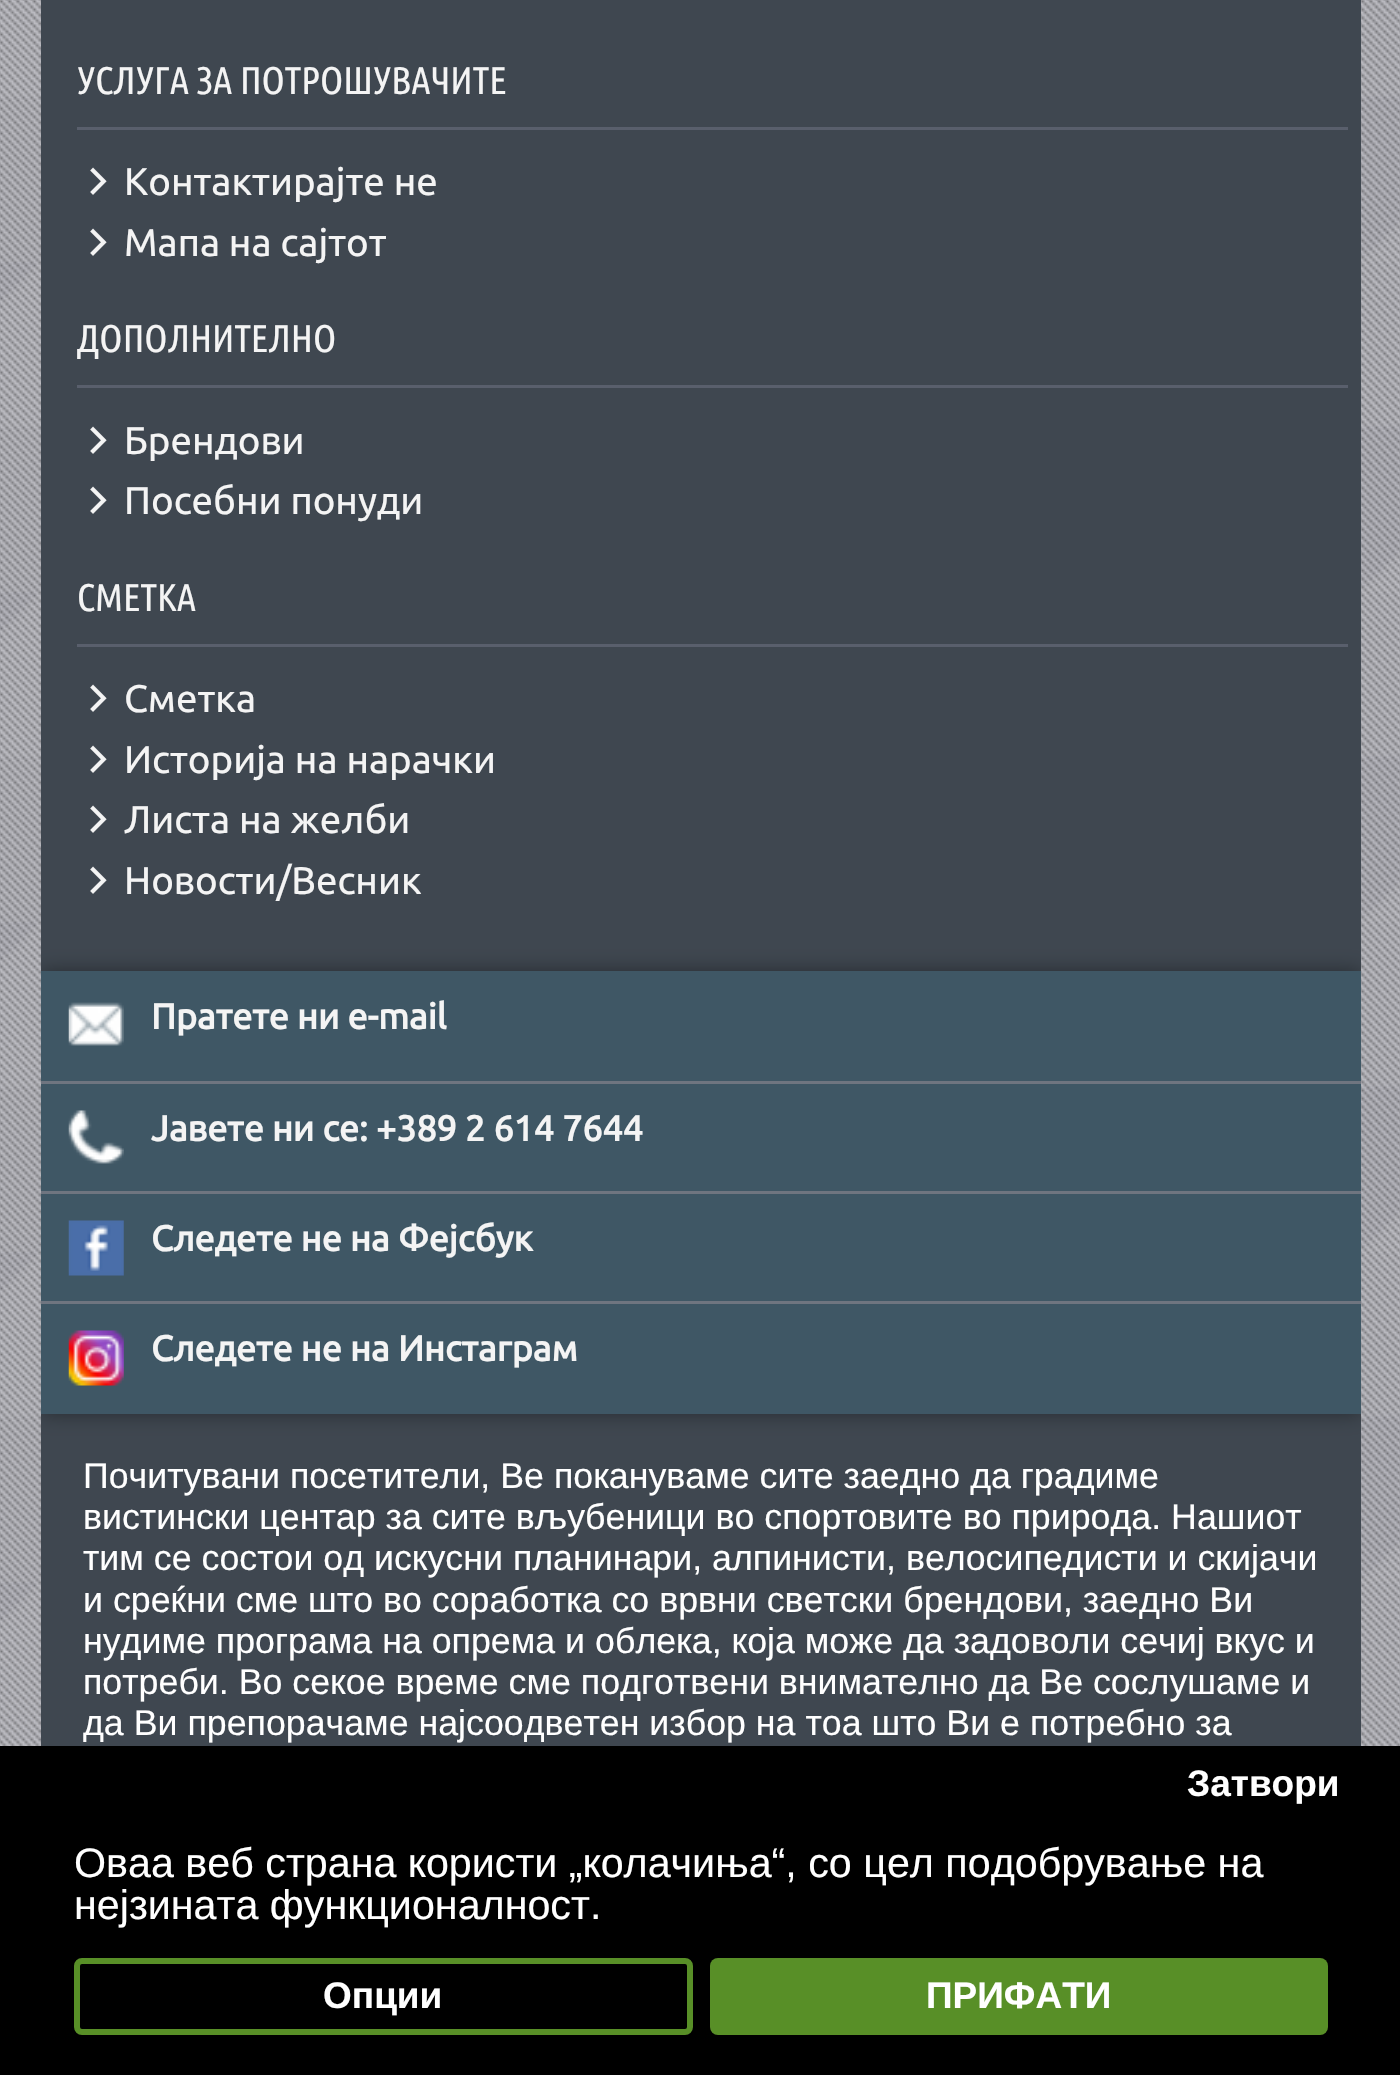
#include "include/core/SkBlurTypes.h"
#include "include/core/SkCanvas.h"
#include "include/core/SkData.h"
#include "include/core/SkFont.h"
#include "include/core/SkFontMgr.h"
#include "include/core/SkImage.h"
#include "include/core/SkMaskFilter.h"
#include "include/core/SkPaint.h"
#include "include/core/SkPathBuilder.h"
#include "include/core/SkTextBlob.h"
#include "include/effects/SkDashPathEffect.h"
#include "include/effects/SkGradientShader.h"
#include "include/utils/SkParsePath.h"

extern sk_sp<SkFontMgr> fontMgr;

void draw(SkCanvas* canvas) {
  SkPaint p;
  p.setAntiAlias(true);
  canvas->clear(SK_ColorWHITE);
  canvas->drawImageRect(SkImages::DeferredFromEncodedData(SkData::MakeFromFileName("images/1.png")), SkRect::MakeLTRB(0, 0, 1400, 1746), SkSamplingOptions());
  canvas->drawImageRect(SkImages::DeferredFromEncodedData(SkData::MakeFromFileName("images/2.png")), SkRect::MakeLTRB(0, 0, 1400, 1746), SkSamplingOptions());
  p.setColor(SkColorSetRGB(63, 71, 80));
  canvas->drawRect(SkRect::MakeLTRB(41, 0, 1361, 1746), p);
  p.setColor(SkColorSetRGB(89, 95, 108));
  canvas->drawRect(SkRect::MakeLTRB(77, 127, 1348, 130), p);
  canvas->drawRect(SkRect::MakeLTRB(77, 385, 1348, 388), p);
  canvas->drawRect(SkRect::MakeLTRB(77, 644, 1348, 647), p);
  canvas->save();
  canvas->clipRect(SkRect::MakeLTRB(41, 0, 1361, 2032));
  p.setColor(SkColorSetARGB(102, 0, 0, 0));
  p.setMaskFilter(SkMaskFilter::MakeBlur(kNormal_SkBlurStyle, 9.5f));
  canvas->drawRect(SkRect::MakeLTRB(41, 971, 1361, 1414), p);
  p.setMaskFilter(nullptr);
  canvas->restore();
  p.setColor(SkColorSetRGB(63, 87, 101));
  canvas->drawRect(SkRect::MakeLTRB(41, 971, 1361, 1414), p);
  canvas->drawImageRect(SkImages::DeferredFromEncodedData(SkData::MakeFromFileName("images/3.png")), SkRect::MakeLTRB(68, 1002, 124, 1046), SkSamplingOptions());
  p.setColor(SkColorSetRGB(111, 117, 128));
  canvas->drawRect(SkRect::MakeLTRB(41, 1081, 1361, 1084), p);
  canvas->drawImageRect(SkImages::DeferredFromEncodedData(SkData::MakeFromFileName("images/4.png")), SkRect::MakeLTRB(68, 1110, 124, 1164), SkSamplingOptions());
  canvas->drawRect(SkRect::MakeLTRB(41, 1191, 1361, 1194), p);
  canvas->drawImageRect(SkImages::DeferredFromEncodedData(SkData::MakeFromFileName("images/5.png")), SkRect::MakeLTRB(68, 1220, 124, 1276), SkSamplingOptions());
  canvas->drawRect(SkRect::MakeLTRB(41, 1301, 1361, 1304), p);
  canvas->drawImageRect(SkImages::DeferredFromEncodedData(SkData::MakeFromFileName("images/6.png")), SkRect::MakeLTRB(68, 1330, 124, 1386), SkSamplingOptions());
  p.setColor(SK_ColorBLACK);
  canvas->drawRect(SkRect::MakeLTRB(0, 1746, 1400, 2075), p);
  p.setStyle(SkPaint::kStroke_Style);
  p.setStrokeWidth(6);
  p.setColor(SkColorSetRGB(88, 143, 39));
  canvas->drawRoundRect(SkRect::MakeLTRB(77, 1961, 690, 2032), 5, 5, p);
  p.setStyle(SkPaint::kFill_Style);
  canvas->drawRoundRect(SkRect::MakeLTRB(710, 1958, 1328, 2035), 8, 8, p);
  SkFont font1(fontMgr->matchFamilyStyle("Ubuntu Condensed", SkFontStyle::Normal()), 38.5f);
  font1.setSubpixel(true);
  p.setColor(SkColorSetRGB(244, 244, 244));
  canvas->drawString("УСЛУГА ЗА ПОТРОШУВАЧИТЕ", 77, 94, font1, p);
  SkFont font2(fontMgr->matchFamilyStyle("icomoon", SkFontStyle::Normal()), 30);
  font2.setSubpixel(true);
  canvas->drawString("1", 83, 195, font2, p);
  SkFont font3(fontMgr->matchFamilyStyle("Ubuntu", SkFontStyle::Normal()), 38.5f);
  font3.setSubpixel(true);
  canvas->drawString("Контактирајте не", 124, 195, font3, p);
  canvas->drawString("1", 83, 256, font2, p);
  canvas->drawString("Мапа на сајтот", 124, 256, font3, p);
  canvas->drawString("ДОПОЛНИТЕЛНО", 77, 352, font1, p);
  canvas->drawString("1", 83, 454, font2, p);
  canvas->drawString("Брендови", 124, 454, font3, p);
  canvas->drawString("1", 83, 514, font2, p);
  canvas->drawString("Посебни понуди", 124, 514, font3, p);
  canvas->drawString("СМЕТКА", 77, 611, font1, p);
  canvas->drawString("1", 83, 712, font2, p);
  canvas->drawString("Сметка", 124, 712, font3, p);
  canvas->drawString("1", 83, 773, font2, p);
  canvas->drawString("Историја на нарачки", 124, 773, font3, p);
  canvas->drawString("1", 83, 833, font2, p);
  canvas->drawString("Листа на желби", 124, 833, font3, p);
  canvas->drawString("1", 83, 894, font2, p);
  canvas->drawString("Новости/Весник", 124, 894, font3, p);
  SkFont font4(fontMgr->matchFamilyStyle("Ubuntu", SkFontStyle::Bold()), 35.75f);
  font4.setSubpixel(true);
  canvas->drawString("Пратете ни e-mail", 151, 1029, font4, p);
  canvas->drawString("Јавете ни се: +389 2 614 7644", 151, 1141, font4, p);
  canvas->drawString("Следете не на Фејсбук", 151, 1251, font4, p);
  canvas->drawString("Следете не на Инстаграм", 151, 1361, font4, p);
  SkFont font5(fontMgr->matchFamilyStyle("Liberation Sans", SkFontStyle::Normal()), 35.75f);
  font5.setSubpixel(true);
  p.setColor(SK_ColorWHITE);
  canvas->drawString("Почитувани посетители, Ве покануваме сите заедно да градиме", 83, 1488, font5, p);
  canvas->drawString("вистински центар за сите вљубеници во спортовите во природа. Нашиот", 83, 1529, font5, p);
  canvas->drawString("тим се состои од искусни планинари, алпинисти, велосипедисти и скијачи", 83, 1570, font5, p);
  canvas->drawString("и среќни сме што во соработка со врвни светски брендови, заедно Ви", 83, 1612, font5, p);
  canvas->drawString("нудиме програма на опрема и облека, која може да задоволи сечиј вкус и", 83, 1653, font5, p);
  canvas->drawString("потреби. Во секое време сме подготвени внимателно да Ве сослушаме и", 83, 1694, font5, p);
  canvas->drawString("да Ви препорачаме најсоодветен избор на тоа што Ви е потребно за", 83, 1735, font5, p);
  SkFont font6(fontMgr->matchFamilyStyle("Liberation Sans", SkFontStyle::Bold()), 37);
  font6.setSubpixel(true);
  canvas->drawString("Затвори", 1187, 1796, font6, p);
  canvas->drawString("Опции", 323, 2008, font6, p);
  canvas->drawString("ПРИФАТИ", 926, 2008, font6, p);
  SkFont font7(fontMgr->matchFamilyStyle("Liberation Sans", SkFontStyle::Normal()), 41.25f);
  font7.setSubpixel(true);
  canvas->drawString("Оваа веб страна користи „колачиња“, со цел подобрување на", 74, 1877, font7, p);
  canvas->drawString("нејзината функционалност.", 74, 1919, font7, p);
}
